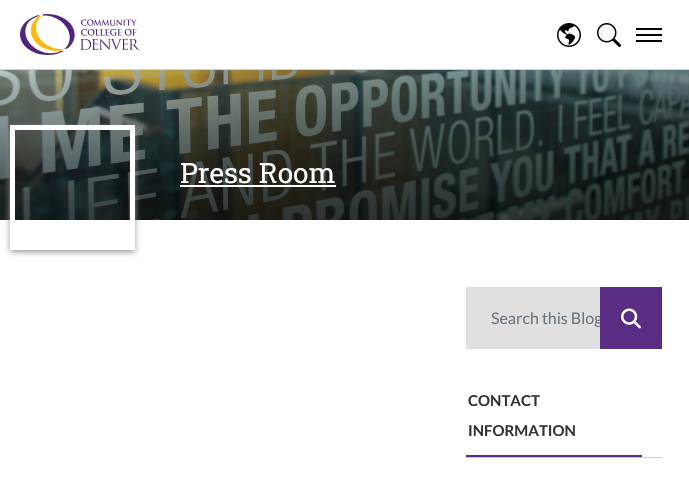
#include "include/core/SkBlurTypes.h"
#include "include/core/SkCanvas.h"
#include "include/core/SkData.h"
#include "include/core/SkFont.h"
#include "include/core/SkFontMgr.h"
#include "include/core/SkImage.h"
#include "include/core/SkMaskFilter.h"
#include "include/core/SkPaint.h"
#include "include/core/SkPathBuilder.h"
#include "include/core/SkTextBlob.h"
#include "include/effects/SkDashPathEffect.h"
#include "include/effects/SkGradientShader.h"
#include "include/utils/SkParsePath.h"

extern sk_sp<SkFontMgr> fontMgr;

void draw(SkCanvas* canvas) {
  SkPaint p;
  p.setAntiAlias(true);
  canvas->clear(SK_ColorWHITE);
  p.setColor(SkColorSetRGB(208, 208, 208));
  canvas->drawRect(SkRect::MakeLTRB(0, 69, 689, 70), p);
  canvas->drawImageRect(SkImages::DeferredFromEncodedData(SkData::MakeFromFileName("images/1.png")), SkRect::MakeLTRB(20, 14, 140, 55), SkSamplingOptions());
  canvas->drawImageRect(SkImages::DeferredFromEncodedData(SkData::MakeFromFileName("images/2.png")), SkRect::MakeLTRB(557, 23, 581, 47), SkSamplingOptions());
  canvas->drawImageRect(SkImages::DeferredFromEncodedData(SkData::MakeFromFileName("images/3.png")), SkRect::MakeLTRB(597, 23, 621, 47), SkSamplingOptions());
  p.setColor(SK_ColorBLACK);
  canvas->drawRect(SkRect::MakeLTRB(636, 28, 662, 30), p);
  canvas->drawRect(SkRect::MakeLTRB(636, 34, 662, 36), p);
  canvas->drawRect(SkRect::MakeLTRB(636, 40, 662, 42), p);
  canvas->drawImageRect(SkImages::DeferredFromEncodedData(SkData::MakeFromFileName("images/4.png")), SkRect::MakeLTRB(0, 70, 689, 220), SkSamplingOptions());
  canvas->save();
  canvas->clipPath(SkPathBuilder(SkPathFillType::kEvenOdd).moveTo(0, 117).lineTo(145, 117).lineTo(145, 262).lineTo(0, 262).close().moveTo(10, 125).lineTo(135, 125).lineTo(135, 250).lineTo(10, 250).close().detach(), true);
  p.setColor(SkColorSetRGB(153, 153, 153));
  p.setMaskFilter(SkMaskFilter::MakeBlur(kNormal_SkBlurStyle, 3));
  canvas->drawRect(SkRect::MakeLTRB(10, 127, 135, 252), p);
  p.setMaskFilter(nullptr);
  canvas->restore();
  p.setStyle(SkPaint::kStroke_Style);
  p.setStrokeWidth(5);
  p.setColor(SK_ColorWHITE);
  canvas->drawRect(SkRect::MakeLTRB(12.5f, 127.5f, 132.5f, 247.5f), p);
  p.setStyle(SkPaint::kFill_Style);
  canvas->drawRect(SkRect::MakeLTRB(180, 185, 336, 187), p);
  p.setColor(SkColorSetRGB(224, 224, 224));
  canvas->drawRect(SkRect::MakeLTRB(466, 287, 600, 349), p);
  p.setColor(SkColorSetRGB(204, 204, 204));
  canvas->drawRect(SkRect::MakeLTRB(466, 457, 662, 458), p);
  p.setColor(SkColorSetRGB(89, 45, 131));
  canvas->drawRect(SkRect::MakeLTRB(466, 455, 642, 457), p);
  SkFont font1(fontMgr->matchFamilyStyle("Roboto Slab", SkFontStyle::Normal()), 28);
  font1.setSubpixel(true);
  p.setColor(SK_ColorWHITE);
  canvas->drawString("Press Room", 180, 183, font1, p);
  SkFont font2(fontMgr->matchFamilyStyle("Lato", SkFontStyle::Normal()), 16);
  font2.setSubpixel(true);
  p.setColor(SkColorSetRGB(108, 117, 125));
  canvas->drawString("Search this Blog", 491, 324, font2, p);
  p.setColor(SkColorSetRGB(89, 45, 131));
  canvas->drawRect(SkRect::MakeLTRB(600, 287, 662, 349), p);
  canvas->drawImageRect(SkImages::DeferredFromEncodedData(SkData::MakeFromFileName("images/5.png")), SkRect::MakeLTRB(621, 308, 641, 329), SkSamplingOptions());
  SkFont font3(fontMgr->matchFamilyStyle("Lato", SkFontStyle::Bold()), 15);
  font3.setSubpixel(true);
  p.setColor(SkColorSetRGB(51, 51, 51));
  canvas->drawString("CONTACT", 468, 406, font3, p);
  canvas->drawString("INFORMATION", 468, 436, font3, p);
}
